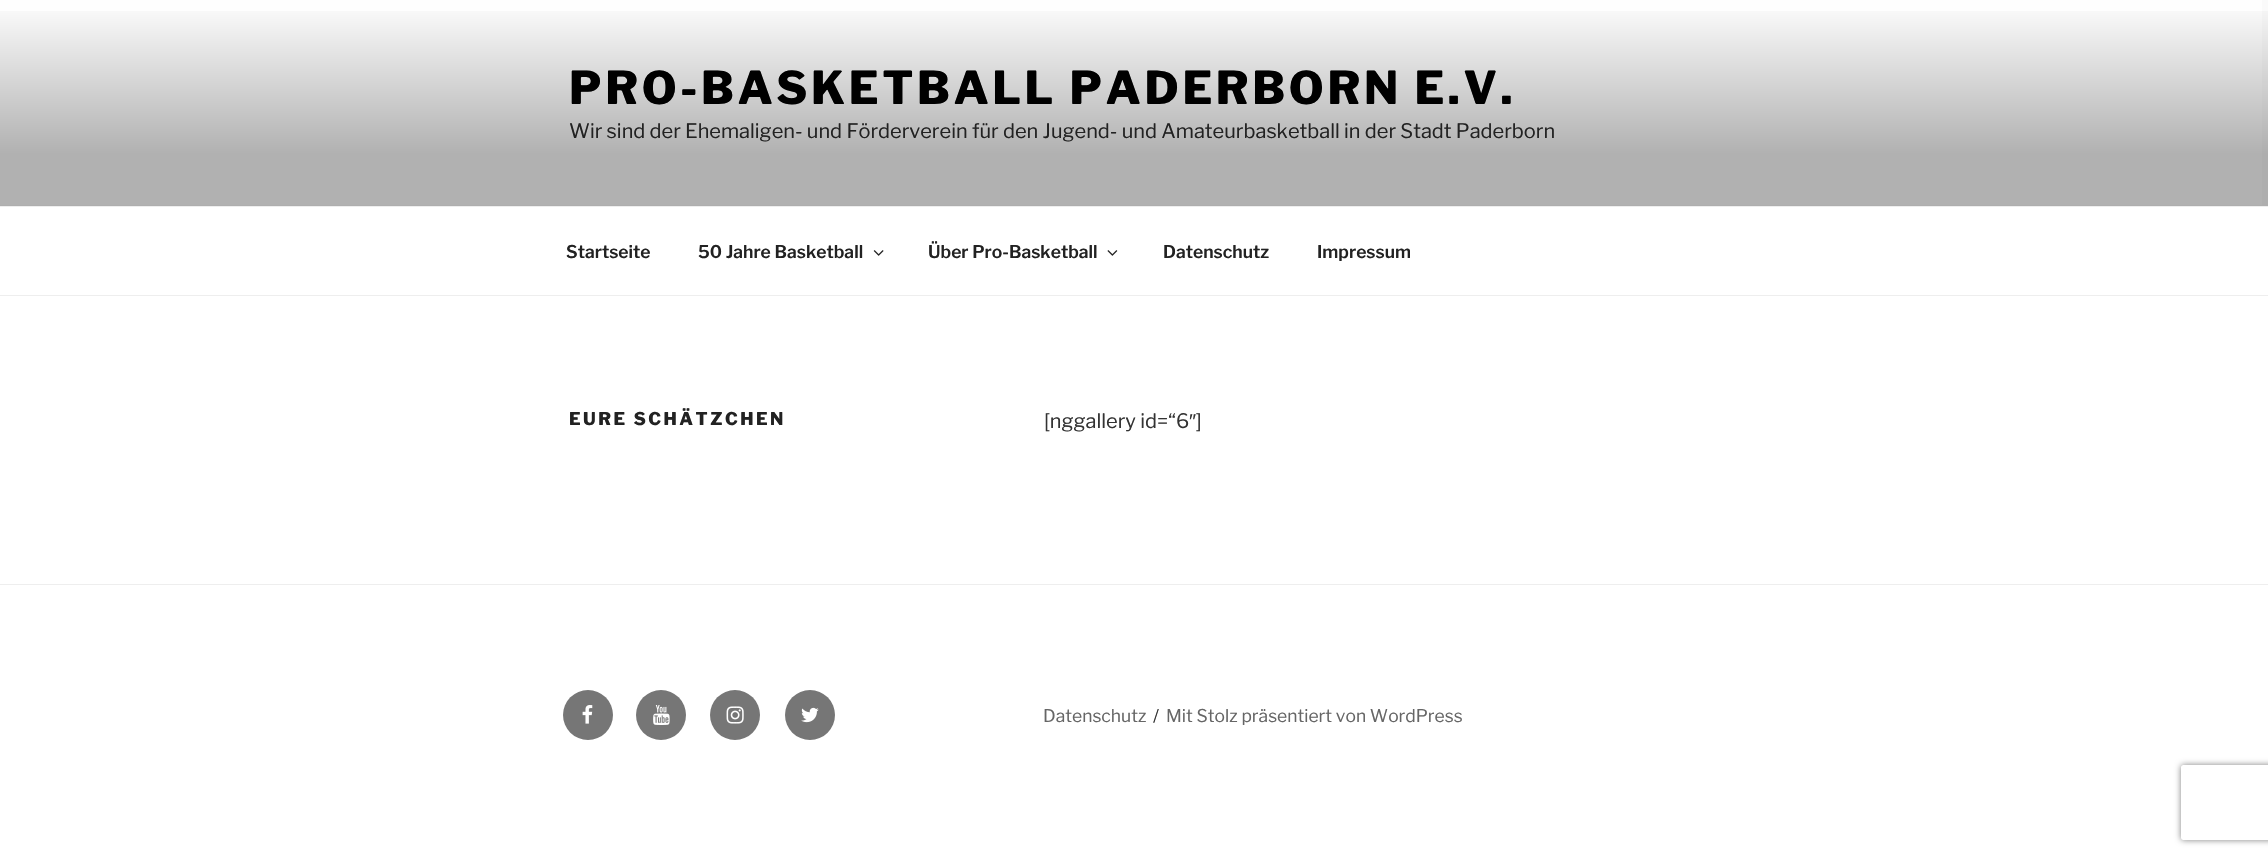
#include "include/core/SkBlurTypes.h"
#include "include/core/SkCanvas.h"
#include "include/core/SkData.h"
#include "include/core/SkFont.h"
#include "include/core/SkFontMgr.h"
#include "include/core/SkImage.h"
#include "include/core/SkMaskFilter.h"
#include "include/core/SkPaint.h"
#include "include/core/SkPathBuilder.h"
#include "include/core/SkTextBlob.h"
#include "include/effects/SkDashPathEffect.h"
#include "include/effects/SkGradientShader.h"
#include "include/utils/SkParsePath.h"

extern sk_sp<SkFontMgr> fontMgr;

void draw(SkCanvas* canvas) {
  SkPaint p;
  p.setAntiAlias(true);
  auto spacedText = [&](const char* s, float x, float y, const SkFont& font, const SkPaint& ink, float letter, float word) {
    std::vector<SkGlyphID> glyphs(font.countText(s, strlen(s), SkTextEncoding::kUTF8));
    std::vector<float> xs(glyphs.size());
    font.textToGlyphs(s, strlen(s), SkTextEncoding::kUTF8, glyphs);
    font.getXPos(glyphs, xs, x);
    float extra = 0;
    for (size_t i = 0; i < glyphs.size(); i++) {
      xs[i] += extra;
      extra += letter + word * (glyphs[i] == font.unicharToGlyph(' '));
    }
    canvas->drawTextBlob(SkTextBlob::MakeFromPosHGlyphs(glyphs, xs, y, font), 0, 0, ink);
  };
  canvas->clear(SK_ColorWHITE);
  p.setColor(SkColorSetRGB(250, 250, 250));
  canvas->drawRect(SkRect::MakeLTRB(0, 0, 2268, 206), p);
  p.setColor(SkColorSetRGB(254, 254, 254));
  canvas->drawRect(SkRect::MakeLTRB(0, 0, 2262, 205), p);
  {
    const SkColor colors[] = {SkColorSetARGB(0, 0, 0, 0), SkColorSetARGB(77, 0, 0, 0), SkColorSetARGB(77, 0, 0, 0)};
    const float stops[] = {0, 0.75f, 1};
    const SkPoint ends[] = {{1134, 0}, {1134, 206}};
    p.setShader(SkGradientShader::MakeLinear(ends, colors, stops, 3, SkTileMode::kClamp));
    p.setAlpha(255);
  }
  canvas->drawRect(SkRect::MakeLTRB(0, 11, 2268, 206), p);
  p.setShader(nullptr);
  p.setColor(SkColorSetRGB(238, 238, 238));
  canvas->drawRect(SkRect::MakeLTRB(0, 206, 2268, 207), p);
  canvas->drawRect(SkRect::MakeLTRB(0, 295, 2268, 296), p);
  canvas->drawImageRect(SkImages::DeferredFromEncodedData(SkData::MakeFromFileName("images/1.png")), SkRect::MakeLTRB(873, 250, 884, 256), SkSamplingOptions());
  canvas->drawImageRect(SkImages::DeferredFromEncodedData(SkData::MakeFromFileName("images/2.png")), SkRect::MakeLTRB(1107, 250, 1118, 256), SkSamplingOptions());
  canvas->drawRect(SkRect::MakeLTRB(0, 584, 2268, 585), p);
  p.setColor(SkColorSetRGB(118, 118, 118));
  canvas->drawCircle(588, 715, 25, p);
  canvas->drawImageRect(SkImages::DeferredFromEncodedData(SkData::MakeFromFileName("images/3.png")), SkRect::MakeLTRB(582, 705, 593, 724), SkSamplingOptions());
  canvas->drawCircle(661, 715, 25, p);
  canvas->drawImageRect(SkImages::DeferredFromEncodedData(SkData::MakeFromFileName("images/4.png")), SkRect::MakeLTRB(653, 705, 670, 725), SkSamplingOptions());
  canvas->drawCircle(735, 715, 25, p);
  canvas->drawImageRect(SkImages::DeferredFromEncodedData(SkData::MakeFromFileName("images/5.png")), SkRect::MakeLTRB(726, 706, 744, 724), SkSamplingOptions());
  canvas->drawCircle(810, 715, 25, p);
  canvas->drawImageRect(SkImages::DeferredFromEncodedData(SkData::MakeFromFileName("images/6.png")), SkRect::MakeLTRB(801, 707, 819, 723), SkSamplingOptions());
  canvas->save();
  canvas->clipPath(SkPathBuilder(SkPathFillType::kEvenOdd).moveTo(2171, 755).lineTo(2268, 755).lineTo(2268, 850).lineTo(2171, 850).close().moveTo(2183.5f, 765).lineTo(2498.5f, 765).cubicTo(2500, 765, 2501, 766, 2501, 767.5f).lineTo(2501, 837.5f).cubicTo(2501, 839, 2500, 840, 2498.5f, 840).lineTo(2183.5f, 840).cubicTo(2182, 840, 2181, 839, 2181, 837.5f).lineTo(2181, 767.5f).cubicTo(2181, 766, 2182, 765, 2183.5f, 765).close().detach(), true);
  p.setColor(SkColorSetRGB(128, 128, 128));
  p.setMaskFilter(SkMaskFilter::MakeBlur(kNormal_SkBlurStyle, 3));
  canvas->drawRoundRect(SkRect::MakeLTRB(2181, 765, 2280, 840), 2.5f, 2.5f, p);
  p.setMaskFilter(nullptr);
  canvas->restore();
  SkFont font1(fontMgr->matchFamilyStyle("Libre Franklin", SkFontStyle(100, SkFontStyle::kNormal_Width, SkFontStyle::kUpright_Slant)), 45);
  font1.setSubpixel(true);
  p.setColor(SK_ColorBLACK);
  spacedText("PRO-BASKETBALL PADERBORN E.V.", 569, 104, font1, p, 3.6f, 0);
  SkFont font2(fontMgr->matchFamilyStyle("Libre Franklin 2", SkFontStyle(100, SkFontStyle::kNormal_Width, SkFontStyle::kUpright_Slant)), 20);
  font2.setSubpixel(true);
  p.setColor(SkColorSetRGB(34, 34, 34));
  canvas->drawString("Wir sind der Ehemaligen- und Förderverein für den Jugend- und Amateurbasketball in der Stadt Paderborn", 569, 138, font2, p);
  SkFont font3(fontMgr->matchFamilyStyle("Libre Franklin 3", SkFontStyle(100, SkFontStyle::kNormal_Width, SkFontStyle::kUpright_Slant)), 17.5f);
  font3.setSubpixel(true);
  canvas->drawString("Startseite", 566, 258, font3, p);
  canvas->drawString("50 Jahre Basketball", 698, 258, font3, p);
  canvas->drawString("Über Pro-Basketball", 928, 258, font3, p);
  canvas->drawString("Datenschutz", 1163, 258, font3, p);
  canvas->drawString("Impressum", 1317, 258, font3, p);
  SkFont font4(fontMgr->matchFamilyStyle("Libre Franklin", SkFontStyle(100, SkFontStyle::kNormal_Width, SkFontStyle::kUpright_Slant)), 17.5f);
  font4.setSubpixel(true);
  spacedText("EURE SCHÄTZCHEN", 569, 425, font4, p, 2.5f, 0);
  p.setColor(SkColorSetRGB(51, 51, 51));
  canvas->drawString("[nggallery id=“6", 1044, 428, font2, p);
  SkFont font5(fontMgr->matchFamilyStyle("Liberation Sans", SkFontStyle::Normal()), 20);
  font5.setSubpixel(true);
  canvas->drawString("″", 1189, 428, font5, p);
  canvas->drawString("]", 1196, 428, font2, p);
  SkFont font6(fontMgr->matchFamilyStyle("Libre Franklin 2", SkFontStyle(100, SkFontStyle::kNormal_Width, SkFontStyle::kUpright_Slant)), 17.5f);
  font6.setSubpixel(true);
  p.setColor(SkColorSetRGB(102, 102, 102));
  canvas->drawString("Datenschutz", 1043, 722, font6, p);
  p.setColor(SkColorSetRGB(51, 51, 51));
  canvas->drawString("/", 1153, 722, font6, p);
  p.setColor(SkColorSetRGB(102, 102, 102));
  canvas->drawString("Mit Stolz präsentiert von WordPress", 1166, 722, font6, p);
}
